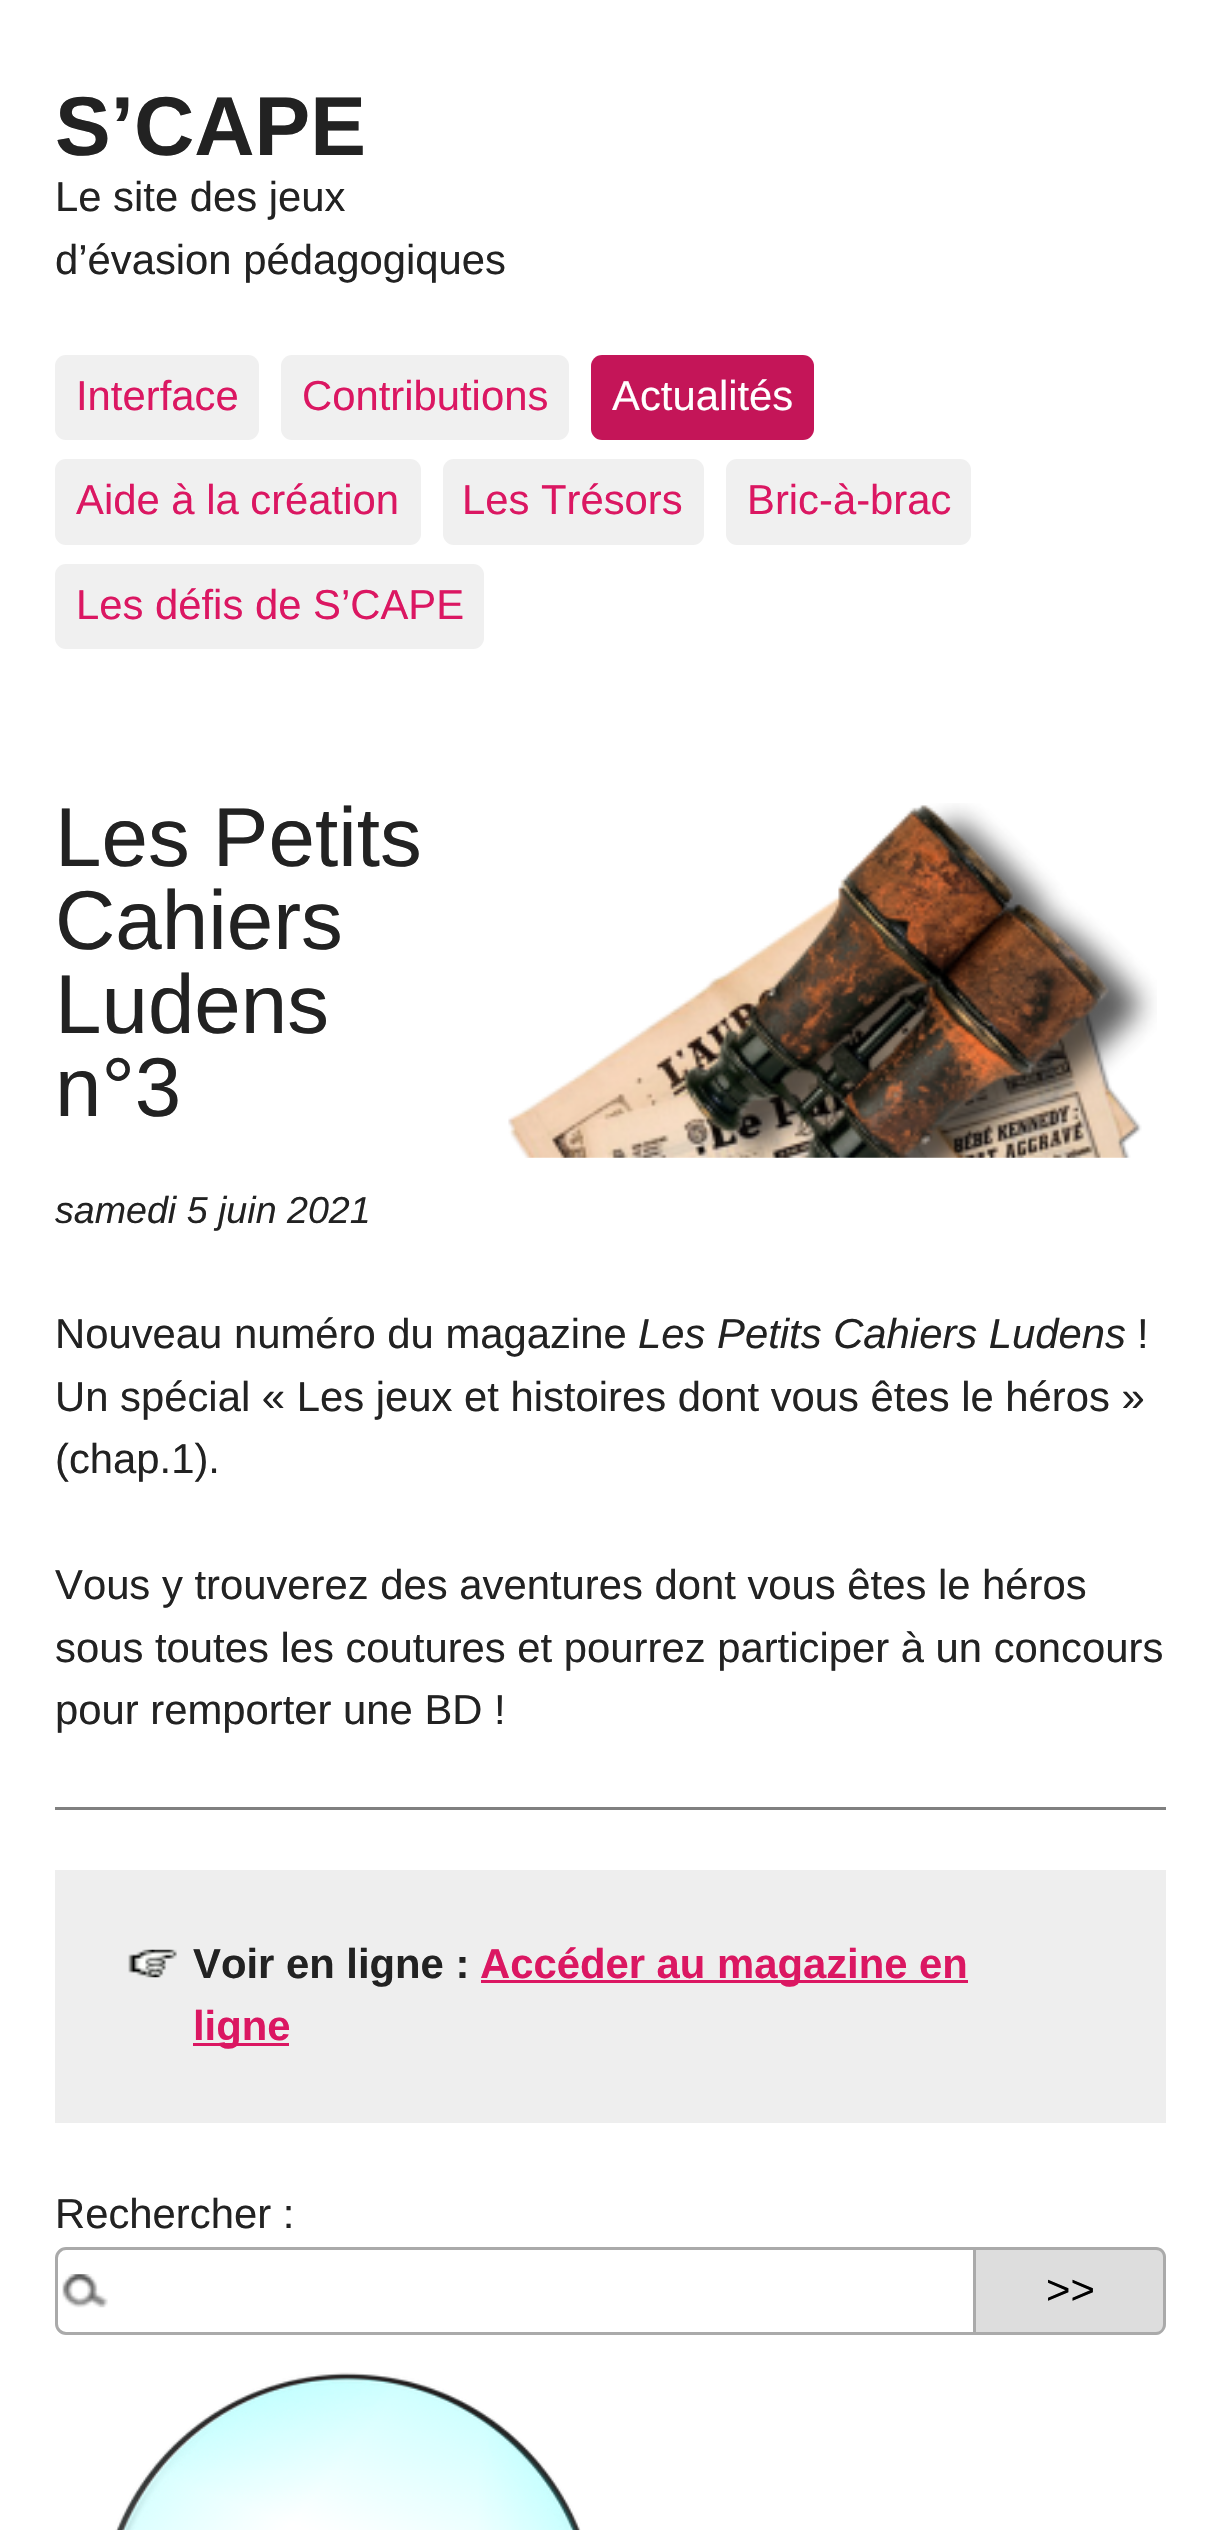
#include "include/core/SkBlurTypes.h"
#include "include/core/SkCanvas.h"
#include "include/core/SkData.h"
#include "include/core/SkFont.h"
#include "include/core/SkFontMgr.h"
#include "include/core/SkImage.h"
#include "include/core/SkMaskFilter.h"
#include "include/core/SkPaint.h"
#include "include/core/SkPathBuilder.h"
#include "include/core/SkTextBlob.h"
#include "include/effects/SkDashPathEffect.h"
#include "include/effects/SkGradientShader.h"
#include "include/utils/SkParsePath.h"

extern sk_sp<SkFontMgr> fontMgr;

void draw(SkCanvas* canvas) {
  SkPaint p;
  p.setAntiAlias(true);
  canvas->clear(SK_ColorWHITE);
  p.setColor(SkColorSetRGB(240, 240, 240));
  canvas->drawRoundRect(SkRect::MakeLTRB(55, 355, 259, 440), 11, 11, p);
  canvas->drawRoundRect(SkRect::MakeLTRB(281, 355, 569, 440), 11, 11, p);
  p.setColor(SkColorSetRGB(196, 21, 88));
  canvas->drawRoundRect(SkRect::MakeLTRB(591, 355, 814, 440), 11, 11, p);
  p.setColor(SkColorSetRGB(240, 240, 240));
  canvas->drawRoundRect(SkRect::MakeLTRB(55, 459, 421, 545), 11, 11, p);
  canvas->drawRoundRect(SkRect::MakeLTRB(443, 459, 704, 545), 11, 11, p);
  canvas->drawRoundRect(SkRect::MakeLTRB(726, 459, 971, 545), 11, 11, p);
  canvas->drawRoundRect(SkRect::MakeLTRB(55, 564, 484, 649), 11, 11, p);
  canvas->drawImageRect(SkImages::DeferredFromEncodedData(SkData::MakeFromFileName("images/1.png")), SkRect::MakeLTRB(508, 803, 1157, 1158), SkSamplingOptions());
  p.setColor(SkColorSetRGB(128, 128, 128));
  canvas->drawRect(SkRect::MakeLTRB(55, 1807, 1166, 1810), p);
  p.setColor(SkColorSetRGB(238, 238, 238));
  canvas->drawRect(SkRect::MakeLTRB(55, 1870, 1166, 2123), p);
  canvas->drawImageRect(SkImages::DeferredFromEncodedData(SkData::MakeFromFileName("images/2.png")), SkRect::MakeLTRB(128, 1949, 177, 1978), SkSamplingOptions());
  p.setColor(SkColorSetRGB(219, 23, 98));
  canvas->drawRect(SkRect::MakeLTRB(481, 1980, 968, 1983), p);
  canvas->drawRect(SkRect::MakeLTRB(193, 2043, 289, 2046), p);
  canvas->drawImageRect(SkImages::DeferredFromEncodedData(SkData::MakeFromFileName("images/3.png")), SkRect::MakeLTRB(62, 2274, 108, 2308), SkSamplingOptions());
  p.setStyle(SkPaint::kStroke_Style);
  p.setStrokeWidth(3);
  p.setColor(SkColorSetRGB(170, 170, 170));
  canvas->drawPath(SkPathBuilder().moveTo(66, 2248.5f).lineTo(974.5f, 2248.5f).lineTo(974.5f, 2333.5f).lineTo(66, 2333.5f).cubicTo(61, 2333.5f, 56.5f, 2329, 56.5f, 2324).lineTo(56.5f, 2258).cubicTo(56.5f, 2253, 61, 2248.5f, 66, 2248.5f).close().detach(), p);
  p.setStyle(SkPaint::kFill_Style);
  p.setColor(SkColorSetRGB(221, 221, 221));
  canvas->drawPath(SkPathBuilder().moveTo(976, 2247).lineTo(1155, 2247).cubicTo(1161, 2247, 1166, 2252, 1166, 2258).lineTo(1166, 2324).cubicTo(1166, 2330, 1161, 2335, 1155, 2335).lineTo(976, 2335).close().detach(), p);
  p.setColor(SkColorSetRGB(170, 170, 170));
  canvas->drawPath(SkPathBuilder(SkPathFillType::kEvenOdd).moveTo(976, 2247).lineTo(1156, 2247).cubicTo(1161, 2247, 1166, 2251, 1166, 2257).lineTo(1166, 2324).cubicTo(1166, 2330, 1161, 2335, 1156, 2335).lineTo(976, 2335).close().moveTo(976, 2250).lineTo(1156, 2250).cubicTo(1160, 2250, 1163, 2253, 1163, 2257).lineTo(1163, 2324).cubicTo(1163, 2329, 1160, 2332, 1156, 2332).lineTo(976, 2332).close().detach(), p);
  canvas->drawImageRect(SkImages::DeferredFromEncodedData(SkData::MakeFromFileName("images/4.png")), SkRect::MakeLTRB(115, 2372, 581, 2530), SkSamplingOptions());
  SkFont font1(fontMgr->matchFamilyStyle("Liberation Sans", SkFontStyle::Bold()), 83.5f);
  font1.setSubpixel(true);
  p.setColor(SkColorSetRGB(34, 34, 34));
  canvas->drawString("S’CAPE", 55, 155, font1, p);
  SkFont font2(fontMgr->matchFamilyStyle("Liberation Sans", SkFontStyle::Normal()), 41.8f);
  font2.setSubpixel(true);
  canvas->drawString("Le site des jeux", 55, 211, font2, p);
  canvas->drawString("d’évasion pédagogiques", 55, 274, font2, p);
  p.setColor(SkColorSetRGB(219, 23, 98));
  canvas->drawString("Interface", 76, 410, font2, p);
  canvas->drawString("Contributions", 302, 410, font2, p);
  p.setColor(SK_ColorWHITE);
  canvas->drawString("Actualités", 612, 410, font2, p);
  p.setColor(SkColorSetRGB(219, 23, 98));
  canvas->drawString("Aide à la création", 76, 514, font2, p);
  canvas->drawString("Les Trésors", 462, 514, font2, p);
  canvas->drawString("Bric-à-brac", 747, 514, font2, p);
  canvas->drawString("Les défis de S’CAPE", 76, 619, font2, p);
  SkFont font3(fontMgr->matchFamilyStyle("Liberation Sans", SkFontStyle::Normal()), 83.5f);
  font3.setSubpixel(true);
  p.setColor(SkColorSetRGB(34, 34, 34));
  canvas->drawString("Les Petits", 55, 866, font3, p);
  canvas->drawString("Cahiers", 55, 949, font3, p);
  canvas->drawString("Ludens", 55, 1033, font3, p);
  canvas->drawString("n°3", 55, 1116, font3, p);
  SkFont font4(fontMgr->matchFamilyStyle("Liberation Sans", SkFontStyle::Italic()), 37.6f);
  font4.setSubpixel(true);
  canvas->drawString("samedi 5 juin 2021", 55, 1223, font4, p);
  canvas->drawString("Nouveau numéro du magazine", 55, 1348, font2, p);
  SkFont font5(fontMgr->matchFamilyStyle("Liberation Sans", SkFontStyle::Italic()), 41.8f);
  font5.setSubpixel(true);
  canvas->drawString("Les Petits Cahiers Ludens", 638, 1348, font5, p);
  canvas->drawString("!", 1137, 1348, font2, p);
  canvas->drawString("Un spécial « Les jeux et histoires dont vous êtes le héros »", 55, 1411, font2, p);
  canvas->drawString("(chap.1).", 55, 1473, font2, p);
  canvas->drawString("Vous y trouverez des aventures dont vous êtes le héros", 55, 1599, font2, p);
  canvas->drawString("sous toutes les coutures et pourrez participer à un concours", 55, 1662, font2, p);
  canvas->drawString("pour remporter une BD !", 55, 1724, font2, p);
  SkFont font6(fontMgr->matchFamilyStyle("Liberation Sans", SkFontStyle::Bold()), 41.8f);
  font6.setSubpixel(true);
  canvas->drawString("Voir en ligne :", 193, 1978, font6, p);
  p.setColor(SkColorSetRGB(219, 23, 98));
  canvas->drawString("Accéder au magazine en", 480, 1978, font6, p);
  canvas->drawString("ligne", 193, 2040, font6, p);
  p.setColor(SkColorSetRGB(34, 34, 34));
  canvas->drawString("Rechercher :", 55, 2228, font2, p);
  p.setColor(SK_ColorBLACK);
  canvas->drawString(">>", 1046, 2304, font2, p);
}
